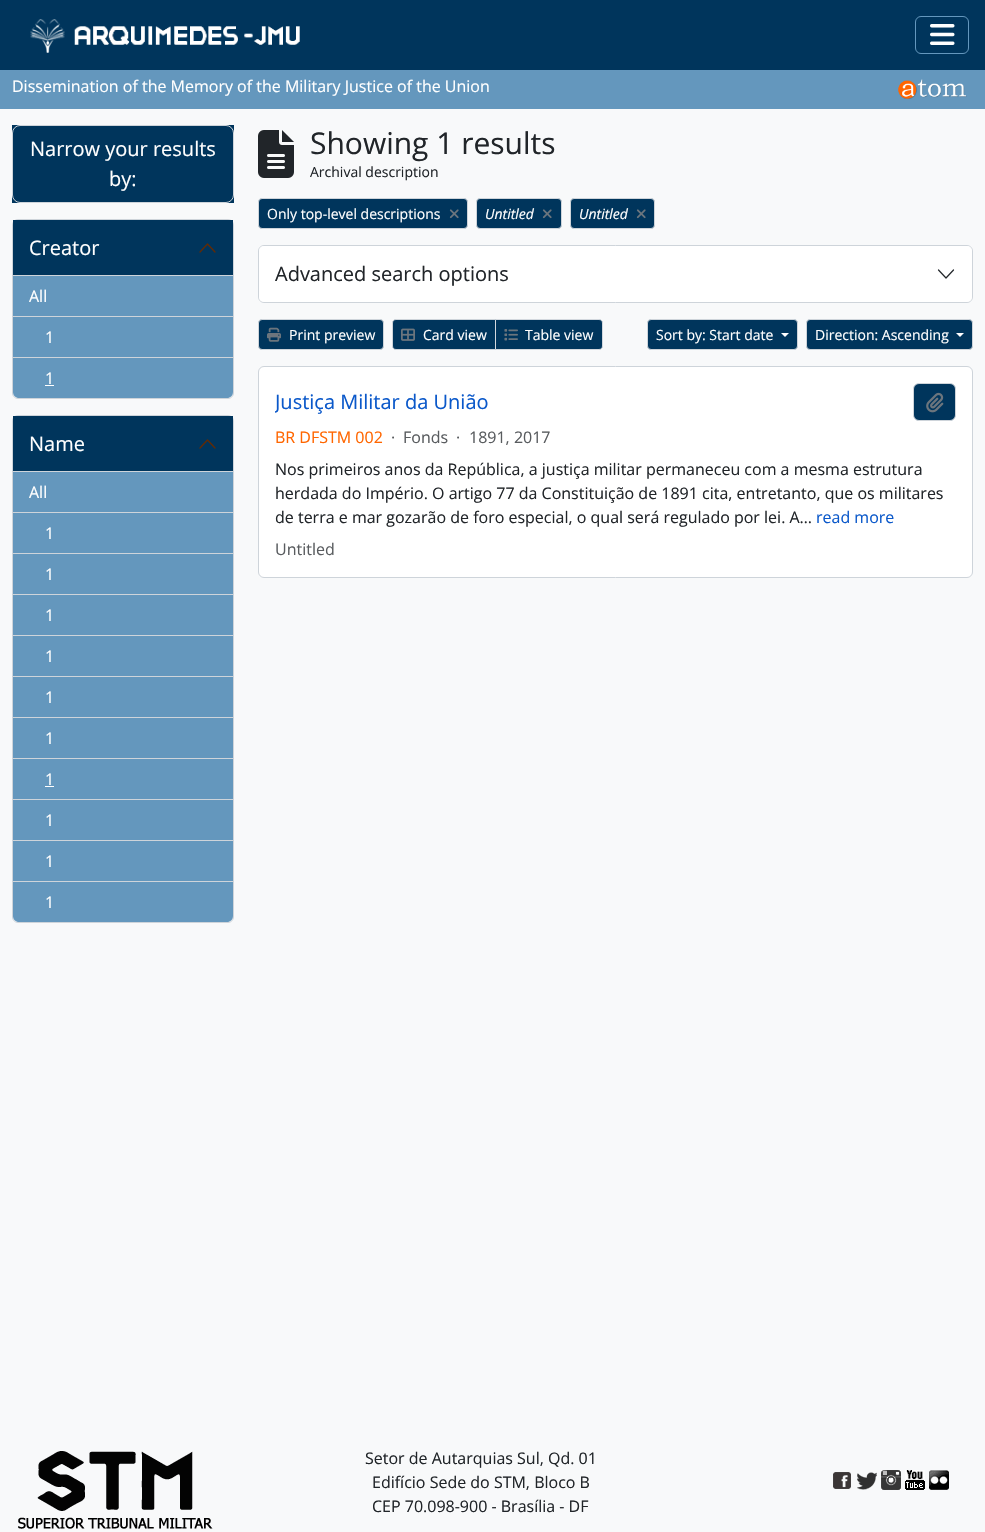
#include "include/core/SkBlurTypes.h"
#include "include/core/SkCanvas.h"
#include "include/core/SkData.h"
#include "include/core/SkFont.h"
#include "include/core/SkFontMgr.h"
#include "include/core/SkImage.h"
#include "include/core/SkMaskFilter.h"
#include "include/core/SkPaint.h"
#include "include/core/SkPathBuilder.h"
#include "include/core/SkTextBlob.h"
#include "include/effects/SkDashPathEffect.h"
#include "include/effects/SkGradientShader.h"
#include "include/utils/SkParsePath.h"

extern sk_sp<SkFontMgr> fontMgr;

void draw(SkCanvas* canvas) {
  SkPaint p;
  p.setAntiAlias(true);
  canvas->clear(SkColorSetRGB(248, 249, 250));
  p.setColor(SkColorSetRGB(0, 53, 92));
  canvas->drawRect(SkRect::MakeLTRB(0, 0, 985, 70), p);
  canvas->drawImageRect(SkImages::DeferredFromEncodedData(SkData::MakeFromFileName("images/1.png")), SkRect::MakeLTRB(30, 19, 300, 53), SkSamplingOptions());
  p.setStyle(SkPaint::kStroke_Style);
  p.setStrokeWidth(1);
  p.setColor(SkColorSetRGB(100, 151, 189));
  canvas->drawRoundRect(SkRect::MakeLTRB(915.5f, 16.5f, 968.5f, 53.5f), 5.5f, 5.5f, p);
  canvas->drawImageRect(SkImages::DeferredFromEncodedData(SkData::MakeFromFileName("images/2.png")), SkRect::MakeLTRB(930, 24, 955, 45), SkSamplingOptions());
  p.setStyle(SkPaint::kFill_Style);
  canvas->drawRect(SkRect::MakeLTRB(0, 70, 985, 109), p);
  canvas->drawImageRect(SkImages::DeferredFromEncodedData(SkData::MakeFromFileName("images/3.png")), SkRect::MakeLTRB(897, 79, 967, 99), SkSamplingOptions());
  p.setColor(SkColorSetRGB(0, 53, 92));
  canvas->drawRect(SkRect::MakeLTRB(12, 125, 234, 203), p);
  p.setStyle(SkPaint::kStroke_Style);
  p.setColor(SkColorSetRGB(206, 212, 218));
  canvas->drawRoundRect(SkRect::MakeLTRB(12.5f, 125.5f, 233.5f, 202.5f), 7.5f, 7.5f, p);
  p.setStyle(SkPaint::kFill_Style);
  p.setColor(SK_ColorWHITE);
  canvas->drawRoundRect(SkRect::MakeLTRB(12.5f, 219.5f, 233.5f, 398.5f), 5.5f, 5.5f, p);
  p.setStyle(SkPaint::kStroke_Style);
  p.setColor(SkColorSetRGB(206, 212, 218));
  canvas->drawRoundRect(SkRect::MakeLTRB(12.5f, 219.5f, 233.5f, 398.5f), 5.5f, 5.5f, p);
  p.setStyle(SkPaint::kFill_Style);
  p.setColor(SkColorSetRGB(0, 53, 92));
  canvas->drawRect(SkRect::MakeLTRB(13, 220, 233, 275), p);
  p.setColor(SkColorSetRGB(206, 212, 218));
  canvas->drawRect(SkRect::MakeLTRB(13, 275, 233, 276), p);
  p.setStyle(SkPaint::kStroke_Style);
  p.setStrokeWidth(1.2f);
  p.setStrokeCap(SkPaint::kRound_Cap);
  p.setStrokeJoin(SkPaint::kRound_Join);
  p.setColor(SkColorSetRGB(102, 41, 0));
  canvas->drawPath(SkPathBuilder().moveTo(215, 252).lineTo(207.5f, 244).lineTo(200, 252).detach(), p);
  p.setStyle(SkPaint::kFill_Style);
  p.setColor(SkColorSetRGB(100, 151, 189));
  canvas->drawRect(SkRect::MakeLTRB(13, 276, 233, 316), p);
  p.setColor(SkColorSetRGB(206, 212, 218));
  canvas->drawRect(SkRect::MakeLTRB(13, 316, 233, 317), p);
  p.setColor(SkColorSetRGB(100, 151, 189));
  canvas->drawRect(SkRect::MakeLTRB(13, 317, 233, 357), p);
  p.setColor(SkColorSetRGB(206, 212, 218));
  canvas->drawRect(SkRect::MakeLTRB(13, 357, 233, 358), p);
  p.setColor(SkColorSetRGB(100, 151, 189));
  canvas->drawPath(SkPathBuilder().moveTo(13, 358).lineTo(233, 358).lineTo(233, 392).cubicTo(233, 395.5f, 230.5f, 398, 227, 398).lineTo(19, 398).cubicTo(15.5f, 398, 13, 395.5f, 13, 392).close().detach(), p);
  p.setColor(SK_ColorWHITE);
  canvas->drawRect(SkRect::MakeLTRB(45, 385, 54, 386), p);
  canvas->drawRoundRect(SkRect::MakeLTRB(12.5f, 415.5f, 233.5f, 922.5f), 5.5f, 5.5f, p);
  p.setStyle(SkPaint::kStroke_Style);
  p.setStrokeWidth(1);
  p.setStrokeCap(SkPaint::kButt_Cap);
  p.setStrokeJoin(SkPaint::kMiter_Join);
  p.setColor(SkColorSetRGB(206, 212, 218));
  canvas->drawRoundRect(SkRect::MakeLTRB(12.5f, 415.5f, 233.5f, 922.5f), 5.5f, 5.5f, p);
  p.setStyle(SkPaint::kFill_Style);
  p.setColor(SkColorSetRGB(0, 53, 92));
  canvas->drawRect(SkRect::MakeLTRB(13, 416, 233, 471), p);
  p.setColor(SkColorSetRGB(206, 212, 218));
  canvas->drawRect(SkRect::MakeLTRB(13, 471, 233, 472), p);
  p.setStyle(SkPaint::kStroke_Style);
  p.setStrokeWidth(1.2f);
  p.setStrokeCap(SkPaint::kRound_Cap);
  p.setStrokeJoin(SkPaint::kRound_Join);
  p.setColor(SkColorSetRGB(102, 41, 0));
  canvas->drawPath(SkPathBuilder().moveTo(215, 448).lineTo(207.5f, 440).lineTo(200, 448).detach(), p);
  p.setStyle(SkPaint::kFill_Style);
  p.setColor(SkColorSetRGB(100, 151, 189));
  canvas->drawRect(SkRect::MakeLTRB(13, 472, 233, 512), p);
  p.setColor(SkColorSetRGB(206, 212, 218));
  canvas->drawRect(SkRect::MakeLTRB(13, 512, 233, 513), p);
  p.setColor(SkColorSetRGB(100, 151, 189));
  canvas->drawRect(SkRect::MakeLTRB(13, 513, 233, 553), p);
  p.setColor(SkColorSetRGB(206, 212, 218));
  canvas->drawRect(SkRect::MakeLTRB(13, 553, 233, 554), p);
  p.setColor(SkColorSetRGB(100, 151, 189));
  canvas->drawRect(SkRect::MakeLTRB(13, 554, 233, 594), p);
  p.setColor(SkColorSetRGB(206, 212, 218));
  canvas->drawRect(SkRect::MakeLTRB(13, 594, 233, 595), p);
  p.setColor(SkColorSetRGB(100, 151, 189));
  canvas->drawRect(SkRect::MakeLTRB(13, 595, 233, 635), p);
  p.setColor(SkColorSetRGB(206, 212, 218));
  canvas->drawRect(SkRect::MakeLTRB(13, 635, 233, 636), p);
  p.setColor(SkColorSetRGB(100, 151, 189));
  canvas->drawRect(SkRect::MakeLTRB(13, 636, 233, 676), p);
  p.setColor(SkColorSetRGB(206, 212, 218));
  canvas->drawRect(SkRect::MakeLTRB(13, 676, 233, 677), p);
  p.setColor(SkColorSetRGB(100, 151, 189));
  canvas->drawRect(SkRect::MakeLTRB(13, 677, 233, 717), p);
  p.setColor(SkColorSetRGB(206, 212, 218));
  canvas->drawRect(SkRect::MakeLTRB(13, 717, 233, 718), p);
  p.setColor(SkColorSetRGB(100, 151, 189));
  canvas->drawRect(SkRect::MakeLTRB(13, 718, 233, 758), p);
  p.setColor(SkColorSetRGB(206, 212, 218));
  canvas->drawRect(SkRect::MakeLTRB(13, 758, 233, 759), p);
  p.setColor(SkColorSetRGB(100, 151, 189));
  canvas->drawRect(SkRect::MakeLTRB(13, 759, 233, 799), p);
  p.setColor(SkColorSetRGB(206, 212, 218));
  canvas->drawRect(SkRect::MakeLTRB(13, 799, 233, 800), p);
  p.setColor(SK_ColorWHITE);
  canvas->drawRect(SkRect::MakeLTRB(45, 786, 54, 787), p);
  p.setColor(SkColorSetRGB(100, 151, 189));
  canvas->drawRect(SkRect::MakeLTRB(13, 800, 233, 840), p);
  p.setColor(SkColorSetRGB(206, 212, 218));
  canvas->drawRect(SkRect::MakeLTRB(13, 840, 233, 841), p);
  p.setColor(SkColorSetRGB(100, 151, 189));
  canvas->drawRect(SkRect::MakeLTRB(13, 841, 233, 881), p);
  p.setColor(SkColorSetRGB(206, 212, 218));
  canvas->drawRect(SkRect::MakeLTRB(13, 881, 233, 882), p);
  p.setColor(SkColorSetRGB(100, 151, 189));
  canvas->drawPath(SkPathBuilder().moveTo(13, 882).lineTo(233, 882).lineTo(233, 916).cubicTo(233, 919.5f, 230.5f, 922, 227, 922).lineTo(19, 922).cubicTo(15.5f, 922, 13, 919.5f, 13, 916).close().detach(), p);
  canvas->drawImageRect(SkImages::DeferredFromEncodedData(SkData::MakeFromFileName("images/4.png")), SkRect::MakeLTRB(258, 130, 294, 178), SkSamplingOptions());
  p.setColor(SkColorSetRGB(0, 53, 92));
  canvas->drawRoundRect(SkRect::MakeLTRB(258.5f, 198.5f, 467.5f, 228.5f), 3.5f, 3.5f, p);
  p.setStyle(SkPaint::kStroke_Style);
  p.setStrokeWidth(1);
  p.setStrokeCap(SkPaint::kButt_Cap);
  p.setStrokeJoin(SkPaint::kMiter_Join);
  p.setColor(SkColorSetRGB(206, 212, 218));
  canvas->drawRoundRect(SkRect::MakeLTRB(258.5f, 198.5f, 467.5f, 228.5f), 3.5f, 3.5f, p);
  canvas->drawImageRect(SkImages::DeferredFromEncodedData(SkData::MakeFromFileName("images/5.png")), SkRect::MakeLTRB(449, 209, 459, 219), SkSamplingOptions());
  p.setStyle(SkPaint::kFill_Style);
  p.setColor(SkColorSetRGB(0, 53, 92));
  canvas->drawRoundRect(SkRect::MakeLTRB(476.5f, 198.5f, 561.5f, 228.5f), 3.5f, 3.5f, p);
  p.setStyle(SkPaint::kStroke_Style);
  p.setColor(SkColorSetRGB(206, 212, 218));
  canvas->drawRoundRect(SkRect::MakeLTRB(476.5f, 198.5f, 561.5f, 228.5f), 3.5f, 3.5f, p);
  canvas->drawImageRect(SkImages::DeferredFromEncodedData(SkData::MakeFromFileName("images/5.png")), SkRect::MakeLTRB(542, 209, 552, 219), SkSamplingOptions());
  p.setStyle(SkPaint::kFill_Style);
  p.setColor(SkColorSetRGB(0, 53, 92));
  canvas->drawRoundRect(SkRect::MakeLTRB(570.5f, 198.5f, 654.5f, 228.5f), 3.5f, 3.5f, p);
  p.setStyle(SkPaint::kStroke_Style);
  p.setColor(SkColorSetRGB(206, 212, 218));
  canvas->drawRoundRect(SkRect::MakeLTRB(570.5f, 198.5f, 654.5f, 228.5f), 3.5f, 3.5f, p);
  canvas->drawImageRect(SkImages::DeferredFromEncodedData(SkData::MakeFromFileName("images/5.png")), SkRect::MakeLTRB(636, 209, 646, 219), SkSamplingOptions());
  canvas->drawRoundRect(SkRect::MakeLTRB(258.5f, 245.5f, 972.5f, 302.5f), 5.5f, 5.5f, p);
  p.setStyle(SkPaint::kFill_Style);
  p.setColor(SK_ColorWHITE);
  canvas->drawRoundRect(SkRect::MakeLTRB(259, 246, 972, 302), 5, 5, p);
  p.setStyle(SkPaint::kStroke_Style);
  p.setStrokeWidth(1.2f);
  p.setStrokeCap(SkPaint::kRound_Cap);
  p.setStrokeJoin(SkPaint::kRound_Join);
  p.setColor(SkColorSetRGB(33, 37, 41));
  canvas->drawPath(SkPathBuilder().moveTo(938.5f, 270).lineTo(946, 278).lineTo(953.5f, 270).detach(), p);
  p.setStyle(SkPaint::kFill_Style);
  p.setColor(SkColorSetRGB(0, 53, 92));
  canvas->drawRoundRect(SkRect::MakeLTRB(258.5f, 319.5f, 383.5f, 349.5f), 3.5f, 3.5f, p);
  p.setStyle(SkPaint::kStroke_Style);
  p.setStrokeWidth(1);
  p.setStrokeCap(SkPaint::kButt_Cap);
  p.setStrokeJoin(SkPaint::kMiter_Join);
  p.setColor(SkColorSetRGB(206, 212, 218));
  canvas->drawRoundRect(SkRect::MakeLTRB(258.5f, 319.5f, 383.5f, 349.5f), 3.5f, 3.5f, p);
  canvas->drawImageRect(SkImages::DeferredFromEncodedData(SkData::MakeFromFileName("images/6.png")), SkRect::MakeLTRB(267, 327, 281, 342), SkSamplingOptions());
  p.setStyle(SkPaint::kFill_Style);
  p.setColor(SkColorSetRGB(0, 53, 92));
  canvas->drawPath(SkPathBuilder().moveTo(396, 319.5f).lineTo(495.5f, 319.5f).lineTo(495.5f, 349.5f).lineTo(396, 349.5f).cubicTo(394, 349.5f, 392.5f, 348, 392.5f, 346).lineTo(392.5f, 323).cubicTo(392.5f, 321, 394, 319.5f, 396, 319.5f).close().detach(), p);
  p.setStyle(SkPaint::kStroke_Style);
  p.setColor(SkColorSetRGB(206, 212, 218));
  canvas->drawPath(SkPathBuilder().moveTo(396, 319.5f).lineTo(495.5f, 319.5f).lineTo(495.5f, 349.5f).lineTo(396, 349.5f).cubicTo(394, 349.5f, 392.5f, 348, 392.5f, 346).lineTo(392.5f, 323).cubicTo(392.5f, 321, 394, 319.5f, 396, 319.5f).close().detach(), p);
  canvas->drawImageRect(SkImages::DeferredFromEncodedData(SkData::MakeFromFileName("images/7.png")), SkRect::MakeLTRB(401, 328, 415, 341), SkSamplingOptions());
  p.setStyle(SkPaint::kFill_Style);
  p.setColor(SkColorSetRGB(0, 53, 92));
  canvas->drawPath(SkPathBuilder().moveTo(495.5f, 319.5f).lineTo(599, 319.5f).cubicTo(601, 319.5f, 602.5f, 321, 602.5f, 323).lineTo(602.5f, 346).cubicTo(602.5f, 348, 601, 349.5f, 599, 349.5f).lineTo(495.5f, 349.5f).close().detach(), p);
  p.setStyle(SkPaint::kStroke_Style);
  p.setColor(SkColorSetRGB(211, 216, 222));
  canvas->drawPath(SkPathBuilder().moveTo(495.5f, 319.5f).lineTo(599, 319.5f).cubicTo(601, 319.5f, 602.5f, 321, 602.5f, 323).lineTo(602.5f, 346).cubicTo(602.5f, 348, 601, 349.5f, 599, 349.5f).lineTo(495.5f, 349.5f).close().detach(), p);
  canvas->drawImageRect(SkImages::DeferredFromEncodedData(SkData::MakeFromFileName("images/8.png")), SkRect::MakeLTRB(504, 329, 518, 341), SkSamplingOptions());
  p.setStyle(SkPaint::kFill_Style);
  p.setColor(SkColorSetRGB(0, 53, 92));
  canvas->drawRoundRect(SkRect::MakeLTRB(647.5f, 319.5f, 797.5f, 349.5f), 3.5f, 3.5f, p);
  p.setStyle(SkPaint::kStroke_Style);
  p.setColor(SkColorSetRGB(206, 212, 218));
  canvas->drawRoundRect(SkRect::MakeLTRB(647.5f, 319.5f, 797.5f, 349.5f), 3.5f, 3.5f, p);
  p.setStyle(SkPaint::kFill_Style);
  p.setColor(SK_ColorWHITE);
  canvas->drawPath(SkPathBuilder().moveTo(781, 333).lineTo(789, 333).lineTo(785, 337).close().detach(), p);
  p.setColor(SkColorSetRGB(0, 53, 92));
  canvas->drawRoundRect(SkRect::MakeLTRB(806.5f, 319.5f, 972.5f, 349.5f), 3.5f, 3.5f, p);
  p.setStyle(SkPaint::kStroke_Style);
  p.setColor(SkColorSetRGB(206, 212, 218));
  canvas->drawRoundRect(SkRect::MakeLTRB(806.5f, 319.5f, 972.5f, 349.5f), 3.5f, 3.5f, p);
  p.setStyle(SkPaint::kFill_Style);
  p.setColor(SK_ColorWHITE);
  canvas->drawPath(SkPathBuilder().moveTo(956, 333).lineTo(964, 333).lineTo(960, 337).close().detach(), p);
  canvas->drawRoundRect(SkRect::MakeLTRB(258.5f, 366.5f, 972.5f, 577.5f), 5.5f, 5.5f, p);
  p.setStyle(SkPaint::kStroke_Style);
  p.setColor(SkColorSetRGB(206, 212, 218));
  canvas->drawRoundRect(SkRect::MakeLTRB(258.5f, 366.5f, 972.5f, 577.5f), 5.5f, 5.5f, p);
  p.setStyle(SkPaint::kFill_Style);
  p.setColor(SkColorSetRGB(0, 53, 92));
  canvas->drawRoundRect(SkRect::MakeLTRB(913.5f, 383.5f, 955.5f, 420.5f), 5.5f, 5.5f, p);
  p.setStyle(SkPaint::kStroke_Style);
  p.setColor(SkColorSetRGB(206, 212, 218));
  canvas->drawRoundRect(SkRect::MakeLTRB(913.5f, 383.5f, 955.5f, 420.5f), 5.5f, 5.5f, p);
  canvas->drawImageRect(SkImages::DeferredFromEncodedData(SkData::MakeFromFileName("images/9.png")), SkRect::MakeLTRB(926, 392, 944, 413), SkSamplingOptions());
  canvas->drawImageRect(SkImages::DeferredFromEncodedData(SkData::MakeFromFileName("images/10.png")), SkRect::MakeLTRB(18, 1451, 213, 1529), SkSamplingOptions());
  canvas->drawImageRect(SkImages::DeferredFromEncodedData(SkData::MakeFromFileName("images/11.png")), SkRect::MakeLTRB(833, 1472, 851, 1489), SkSamplingOptions());
  canvas->drawImageRect(SkImages::DeferredFromEncodedData(SkData::MakeFromFileName("images/12.png")), SkRect::MakeLTRB(857, 1472, 877, 1490), SkSamplingOptions());
  canvas->drawImageRect(SkImages::DeferredFromEncodedData(SkData::MakeFromFileName("images/13.png")), SkRect::MakeLTRB(881, 1470, 901, 1490), SkSamplingOptions());
  canvas->drawImageRect(SkImages::DeferredFromEncodedData(SkData::MakeFromFileName("images/14.png")), SkRect::MakeLTRB(905, 1470, 925, 1490), SkSamplingOptions());
  canvas->drawImageRect(SkImages::DeferredFromEncodedData(SkData::MakeFromFileName("images/15.png")), SkRect::MakeLTRB(929, 1470, 949, 1490), SkSamplingOptions());
  SkFont font1(fontMgr->matchFamilyStyle("Open Sans", SkFontStyle::Normal()), 16);
  font1.setSubpixel(true);
  p.setStyle(SkPaint::kFill_Style);
  p.setColor(SK_ColorWHITE);
  canvas->drawString("Dissemination of the Memory of the Military Justice of the Union", 12, 92, font1, p);
  SkFont font2(fontMgr->matchFamilyStyle("Open Sans", SkFontStyle::Normal()), 20);
  font2.setSubpixel(true);
  canvas->drawString("Narrow your results", 30, 156, font2, p);
  canvas->drawString("by:", 109, 186, font2, p);
  canvas->drawString("Creator", 29, 255, font2, p);
  canvas->drawString("All", 29, 302, font1, p);
  canvas->drawString("1", 45, 343, font1, p);
  canvas->drawString("1", 45, 384, font1, p);
  canvas->drawString("Name", 29, 451, font2, p);
  canvas->drawString("All", 29, 498, font1, p);
  canvas->drawString("1", 45, 539, font1, p);
  canvas->drawString("1", 45, 580, font1, p);
  canvas->drawString("1", 45, 621, font1, p);
  canvas->drawString("1", 45, 662, font1, p);
  canvas->drawString("1", 45, 703, font1, p);
  canvas->drawString("1", 45, 744, font1, p);
  canvas->drawString("1", 45, 785, font1, p);
  canvas->drawString("1", 45, 826, font1, p);
  canvas->drawString("1", 45, 867, font1, p);
  canvas->drawString("1", 45, 908, font1, p);
  SkFont font3(fontMgr->matchFamilyStyle("Open Sans", SkFontStyle::Normal()), 30);
  font3.setSubpixel(true);
  p.setColor(SkColorSetRGB(33, 37, 41));
  canvas->drawString("Showing 1 results", 310, 154, font3, p);
  SkFont font4(fontMgr->matchFamilyStyle("Open Sans", SkFontStyle::Normal()), 14);
  font4.setSubpixel(true);
  canvas->drawString("Archival description", 310, 177, font4, p);
  p.setColor(SK_ColorWHITE);
  canvas->drawString("Only top-level descriptions", 267, 219, font4, p);
  SkFont font5(fontMgr->matchFamilyStyle("Open Sans", SkFontStyle::Italic()), 14);
  font5.setSubpixel(true);
  canvas->drawString("Untitled", 485, 219, font5, p);
  canvas->drawString("Untitled", 579, 219, font5, p);
  p.setColor(SkColorSetRGB(33, 37, 41));
  canvas->drawString("Advanced search options", 275, 281, font2, p);
  p.setColor(SK_ColorWHITE);
  canvas->drawString("Print preview", 289, 340, font4, p);
  canvas->drawString("Card view", 423, 340, font4, p);
  canvas->drawString("Table view", 525, 340, font4, p);
  canvas->drawString("Sort by: Start date", 656, 340, font4, p);
  canvas->drawString("Direction: Ascending", 815, 340, font4, p);
  canvas->save();
  canvas->clipRect(SkRect::MakeLTRB(275, 390, 489, 414));
  p.setColor(SkColorSetRGB(10, 88, 202));
  canvas->drawString("Justiça Militar da União", 275, 409, font2, p);
  canvas->restore();
  p.setColor(SkColorSetRGB(255, 102, 0));
  canvas->drawString("BR DFSTM 002", 275, 443, font1, p);
  p.setColor(SkColorSetRGB(89, 92, 95));
  canvas->drawString("·", 391, 443, font1, p);
  canvas->drawString("Fonds", 403, 443, font1, p);
  canvas->drawString("·", 456, 443, font1, p);
  canvas->drawString("1891, 2017", 469, 443, font1, p);
  p.setColor(SkColorSetRGB(33, 37, 41));
  canvas->drawString("Nos primeiros anos da República, a justiça militar permaneceu com a mesma estrutura", 275, 475, font1, p);
  canvas->drawString("herdada do Império. O artigo 77 da Constituição de 1891 cita, entretanto, que os militares", 275, 499, font1, p);
  canvas->drawString("de terra e mar gozarão de foro especial, o qual será regulado por lei. A…", 275, 523, font1, p);
  p.setColor(SkColorSetRGB(10, 88, 202));
  canvas->drawString("read more", 816, 523, font1, p);
  p.setColor(SkColorSetRGB(89, 92, 95));
  canvas->drawString("Untitled", 275, 555, font1, p);
  p.setColor(SkColorSetRGB(33, 37, 41));
  canvas->drawString("Setor de Autarquias Sul, Qd. 01", 365, 1464, font1, p);
  canvas->drawString("Edifício Sede do STM, Bloco B", 372, 1488, font1, p);
  canvas->drawString("CEP 70.098-900 - Brasília - DF", 372, 1512, font1, p);
}
